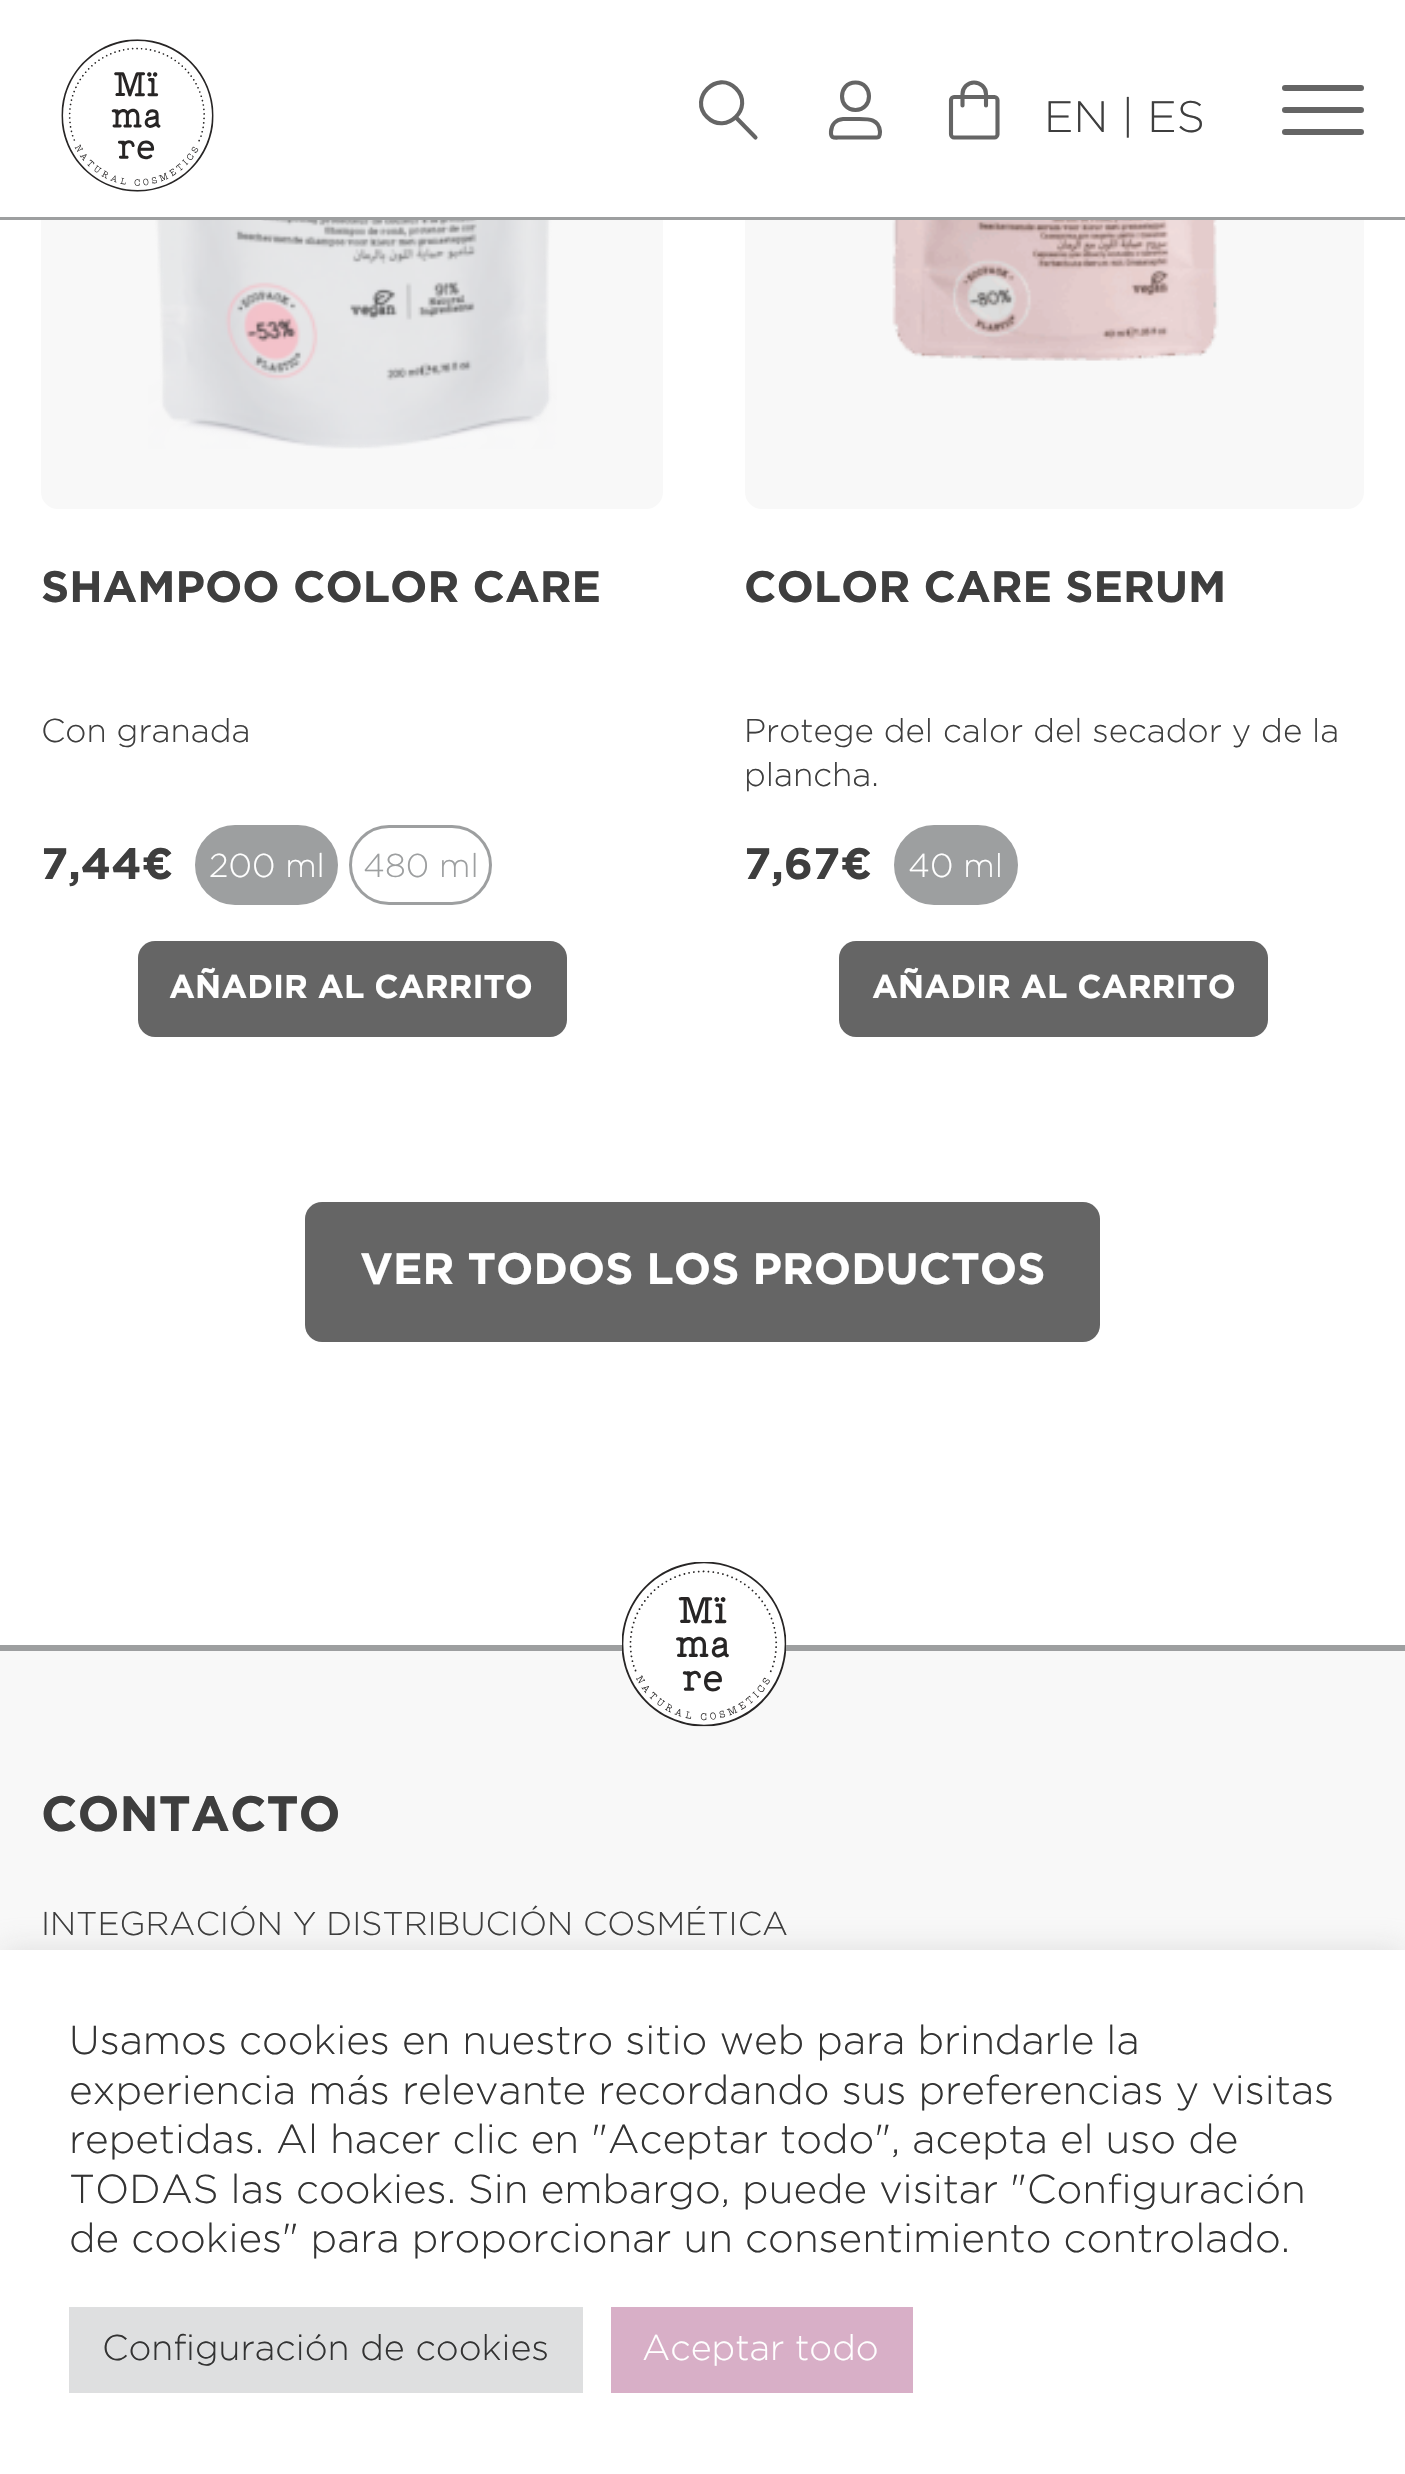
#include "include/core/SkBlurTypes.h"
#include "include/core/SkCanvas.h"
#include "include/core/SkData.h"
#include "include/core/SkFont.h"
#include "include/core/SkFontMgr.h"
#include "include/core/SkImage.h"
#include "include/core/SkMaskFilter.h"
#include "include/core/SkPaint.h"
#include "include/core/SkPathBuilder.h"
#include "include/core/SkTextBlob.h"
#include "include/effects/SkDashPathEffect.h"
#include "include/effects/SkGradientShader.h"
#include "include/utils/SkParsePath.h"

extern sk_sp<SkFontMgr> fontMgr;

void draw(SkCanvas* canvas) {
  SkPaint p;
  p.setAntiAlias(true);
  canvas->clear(SK_ColorWHITE);
  p.setColor(SkColorSetRGB(248, 248, 248));
  canvas->drawRoundRect(SkRect::MakeLTRB(41, -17, 663, 509), 17, 17, p);
  canvas->drawRoundRect(SkRect::MakeLTRB(745, -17, 1364, 509), 17, 17, p);
  p.setColor(SK_ColorWHITE);
  canvas->drawRect(SkRect::MakeLTRB(41, 0, 1364, 217), p);
  p.setColor(SkColorSetRGB(157, 159, 160));
  canvas->drawRect(SkRect::MakeLTRB(0, 217, 1405, 220), p);
  canvas->drawImageRect(SkImages::DeferredFromEncodedData(SkData::MakeFromFileName("images/1.png")), SkRect::MakeLTRB(61, 39, 214, 192), SkSamplingOptions());
  p.setStyle(SkPaint::kStroke_Style);
  p.setStrokeWidth(4.1f);
  p.setStrokeCap(SkPaint::kRound_Cap);
  p.setStrokeJoin(SkPaint::kRound_Join);
  p.setColor(SkColorSetRGB(101, 101, 101));
  canvas->drawPath(SkPathBuilder().moveTo(736, 88.5f).cubicTo(755, 107.5f, 726, 136, 707, 117).cubicTo(688.5f, 98.5f, 717, 69.5f, 736, 88.5f).moveTo(736, 117.5f).lineTo(755.5f, 137.5f).detach(), p);
  canvas->drawPath(SkPathBuilder().moveTo(855.5f, 110).cubicTo(837.5f, 110, 837.5f, 82.5f, 855.5f, 82.5f).cubicTo(873.5f, 82.5f, 873.5f, 110, 855.5f, 110).close().moveTo(877, 137.5f).lineTo(841, 137.5f).cubicTo(834, 137.5f, 830.5f, 139, 831, 131.5f).cubicTo(831.5f, 124.5f, 836, 119.5f, 843, 119).lineTo(859.5f, 119).cubicTo(869, 119, 879, 119, 880, 131.5f).cubicTo(880, 133.5f, 880, 137.5f, 877, 137.5f).close().detach(), p);
  canvas->drawPath(SkPathBuilder().moveTo(986, 105.5f).lineTo(986, 94).cubicTo(986, 87.5f, 980.5f, 82.5f, 974, 82.5f).cubicTo(968, 82.5f, 962.5f, 87.5f, 962.5f, 94).lineTo(962.5f, 105.5f).moveTo(994.5f, 137.5f).lineTo(954, 137.5f).cubicTo(952.5f, 137.5f, 951, 136, 951, 134.5f).lineTo(951, 100).cubicTo(951, 98.5f, 952.5f, 97, 954, 97).lineTo(994.5f, 97).cubicTo(996, 97, 997.5f, 98.5f, 997.5f, 100).lineTo(997.5f, 134.5f).cubicTo(997.5f, 136, 996, 137.5f, 994.5f, 137.5f).close().detach(), p);
  p.setStyle(SkPaint::kFill_Style);
  canvas->drawRoundRect(SkRect::MakeLTRB(1282, 85, 1364, 91), 3, 3, p);
  canvas->drawRoundRect(SkRect::MakeLTRB(1282, 107, 1364, 113), 3, 3, p);
  canvas->drawRoundRect(SkRect::MakeLTRB(1282, 129, 1364, 135), 3, 3, p);
  canvas->drawImageRect(SkImages::DeferredFromEncodedData(SkData::MakeFromFileName("images/2.png")), SkRect::MakeLTRB(148, 220, 557, 449), SkSamplingOptions());
  p.setColor(SkColorSetRGB(157, 159, 160));
  canvas->drawRoundRect(SkRect::MakeLTRB(196.5f, 826.5f, 336.5f, 903.5f), 38.5f, 38.5f, p);
  p.setStyle(SkPaint::kStroke_Style);
  p.setStrokeWidth(3);
  p.setStrokeCap(SkPaint::kButt_Cap);
  p.setStrokeJoin(SkPaint::kMiter_Join);
  canvas->drawRoundRect(SkRect::MakeLTRB(196.5f, 826.5f, 336.5f, 903.5f), 38.5f, 38.5f, p);
  canvas->drawRoundRect(SkRect::MakeLTRB(350.5f, 826.5f, 490.5f, 903.5f), 38.5f, 38.5f, p);
  p.setStyle(SkPaint::kFill_Style);
  p.setColor(SkColorSetRGB(101, 101, 101));
  canvas->drawRoundRect(SkRect::MakeLTRB(138, 941, 567, 1037), 17, 17, p);
  canvas->drawImageRect(SkImages::DeferredFromEncodedData(SkData::MakeFromFileName("images/3.png")), SkRect::MakeLTRB(892, 220, 1219, 361), SkSamplingOptions());
  p.setColor(SkColorSetRGB(157, 159, 160));
  canvas->drawRoundRect(SkRect::MakeLTRB(895.5f, 826.5f, 1016.5f, 903.5f), 38.5f, 38.5f, p);
  p.setStyle(SkPaint::kStroke_Style);
  canvas->drawRoundRect(SkRect::MakeLTRB(895.5f, 826.5f, 1016.5f, 903.5f), 38.5f, 38.5f, p);
  p.setStyle(SkPaint::kFill_Style);
  p.setColor(SkColorSetRGB(101, 101, 101));
  canvas->drawRoundRect(SkRect::MakeLTRB(839, 941, 1268, 1037), 17, 17, p);
  canvas->drawRoundRect(SkRect::MakeLTRB(305, 1202, 1100, 1342), 17, 17, p);
  p.setColor(SkColorSetRGB(248, 248, 248));
  canvas->drawRect(SkRect::MakeLTRB(0, 1651, 1405, 1950), p);
  p.setColor(SkColorSetRGB(157, 159, 160));
  canvas->drawRect(SkRect::MakeLTRB(0, 1645, 1405, 1651), p);
  canvas->drawImageRect(SkImages::DeferredFromEncodedData(SkData::MakeFromFileName("images/4.png")), SkRect::MakeLTRB(622, 1562, 787, 1727), SkSamplingOptions());
  p.setColor(SkColorSetARGB(77, 172, 171, 171));
  p.setMaskFilter(SkMaskFilter::MakeBlur(kNormal_SkBlurStyle, 14));
  canvas->drawRect(SkRect::MakeLTRB(0, 1947, 1405, 2472), p);
  p.setMaskFilter(nullptr);
  p.setColor(SK_ColorWHITE);
  canvas->drawRect(SkRect::MakeLTRB(0, 1950, 1405, 2474), p);
  p.setColor(SkColorSetRGB(222, 223, 224));
  canvas->drawRect(SkRect::MakeLTRB(69, 2307, 583, 2393), p);
  p.setColor(SkColorSetRGB(216, 175, 199));
  canvas->drawRect(SkRect::MakeLTRB(611, 2307, 913, 2393), p);
  SkFont font1(fontMgr->matchFamilyStyle("Gotham", SkFontStyle(300, SkFontStyle::kNormal_Width, SkFontStyle::kUpright_Slant)), 44);
  font1.setSubpixel(true);
  p.setColor(SkColorSetRGB(62, 62, 62));
  canvas->drawString("EN | ES", 1044, 132, font1, p);
  SkFont font2(fontMgr->matchFamilyStyle("Gotham", SkFontStyle::Bold()), 44);
  font2.setSubpixel(true);
  canvas->drawString("SHAMPOO COLOR CARE", 41, 602, font2, p);
  SkFont font3(fontMgr->matchFamilyStyle("Gotham", SkFontStyle(300, SkFontStyle::kNormal_Width, SkFontStyle::kUpright_Slant)), 33);
  font3.setSubpixel(true);
  canvas->drawString("Con granada", 41, 742, font3, p);
  canvas->drawString("7,44€", 41, 879, font2, p);
  p.setColor(SK_ColorWHITE);
  canvas->drawString("200 ml", 209, 877, font3, p);
  p.setColor(SkColorSetRGB(157, 159, 160));
  canvas->drawString("480 ml", 363, 877, font3, p);
  SkFont font4(fontMgr->matchFamilyStyle("Gotham", SkFontStyle::Bold()), 33);
  font4.setSubpixel(true);
  p.setColor(SK_ColorWHITE);
  canvas->drawString("AÑADIR AL CARRITO", 169, 998, font4, p);
  p.setColor(SkColorSetRGB(62, 62, 62));
  canvas->drawString("COLOR CARE SERUM", 744, 602, font2, p);
  canvas->drawString("Protege del calor del secador y de la", 744, 742, font3, p);
  canvas->drawString("plancha.", 744, 786, font3, p);
  canvas->drawString("7,67€", 744, 879, font2, p);
  p.setColor(SK_ColorWHITE);
  canvas->drawString("40 ml", 908, 877, font3, p);
  canvas->drawString("AÑADIR AL CARRITO", 872, 998, font4, p);
  canvas->drawString("VER TODOS LOS PRODUCTOS", 360, 1284, font2, p);
  SkFont font5(fontMgr->matchFamilyStyle("Gotham", SkFontStyle::Bold()), 49.5f);
  font5.setSubpixel(true);
  p.setColor(SkColorSetRGB(62, 62, 62));
  canvas->drawString("CONTACTO", 41, 1831, font5, p);
  canvas->drawString("INTEGRACIÓN Y DISTRIBUCIÓN COSMÉTICA", 41, 1935, font3, p);
  SkFont font6(fontMgr->matchFamilyStyle("Gotham", SkFontStyle(300, SkFontStyle::kNormal_Width, SkFontStyle::kUpright_Slant)), 40.3f);
  font6.setSubpixel(true);
  p.setColor(SkColorSetRGB(51, 51, 51));
  canvas->drawString("Usamos cookies en nuestro sitio web para brindarle la", 69, 2054, font6, p);
  canvas->drawString("experiencia más relevante recordando sus preferencias y visitas", 69, 2104, font6, p);
  canvas->drawString("repetidas. Al hacer clic en \"Aceptar todo\", acepta el uso de", 69, 2153, font6, p);
  canvas->drawString("TODAS las cookies. Sin embargo, puede visitar \"Configuración", 69, 2203, font6, p);
  canvas->drawString("de cookies\" para proporcionar un consentimiento controlado.", 69, 2252, font6, p);
  SkFont font7(fontMgr->matchFamilyStyle("Gotham", SkFontStyle(300, SkFontStyle::kNormal_Width, SkFontStyle::kUpright_Slant)), 35.75f);
  font7.setSubpixel(true);
  canvas->drawString("Configuración de cookies", 102, 2360, font7, p);
  p.setColor(SK_ColorWHITE);
  canvas->drawString("Aceptar todo", 642, 2360, font7, p);
}
